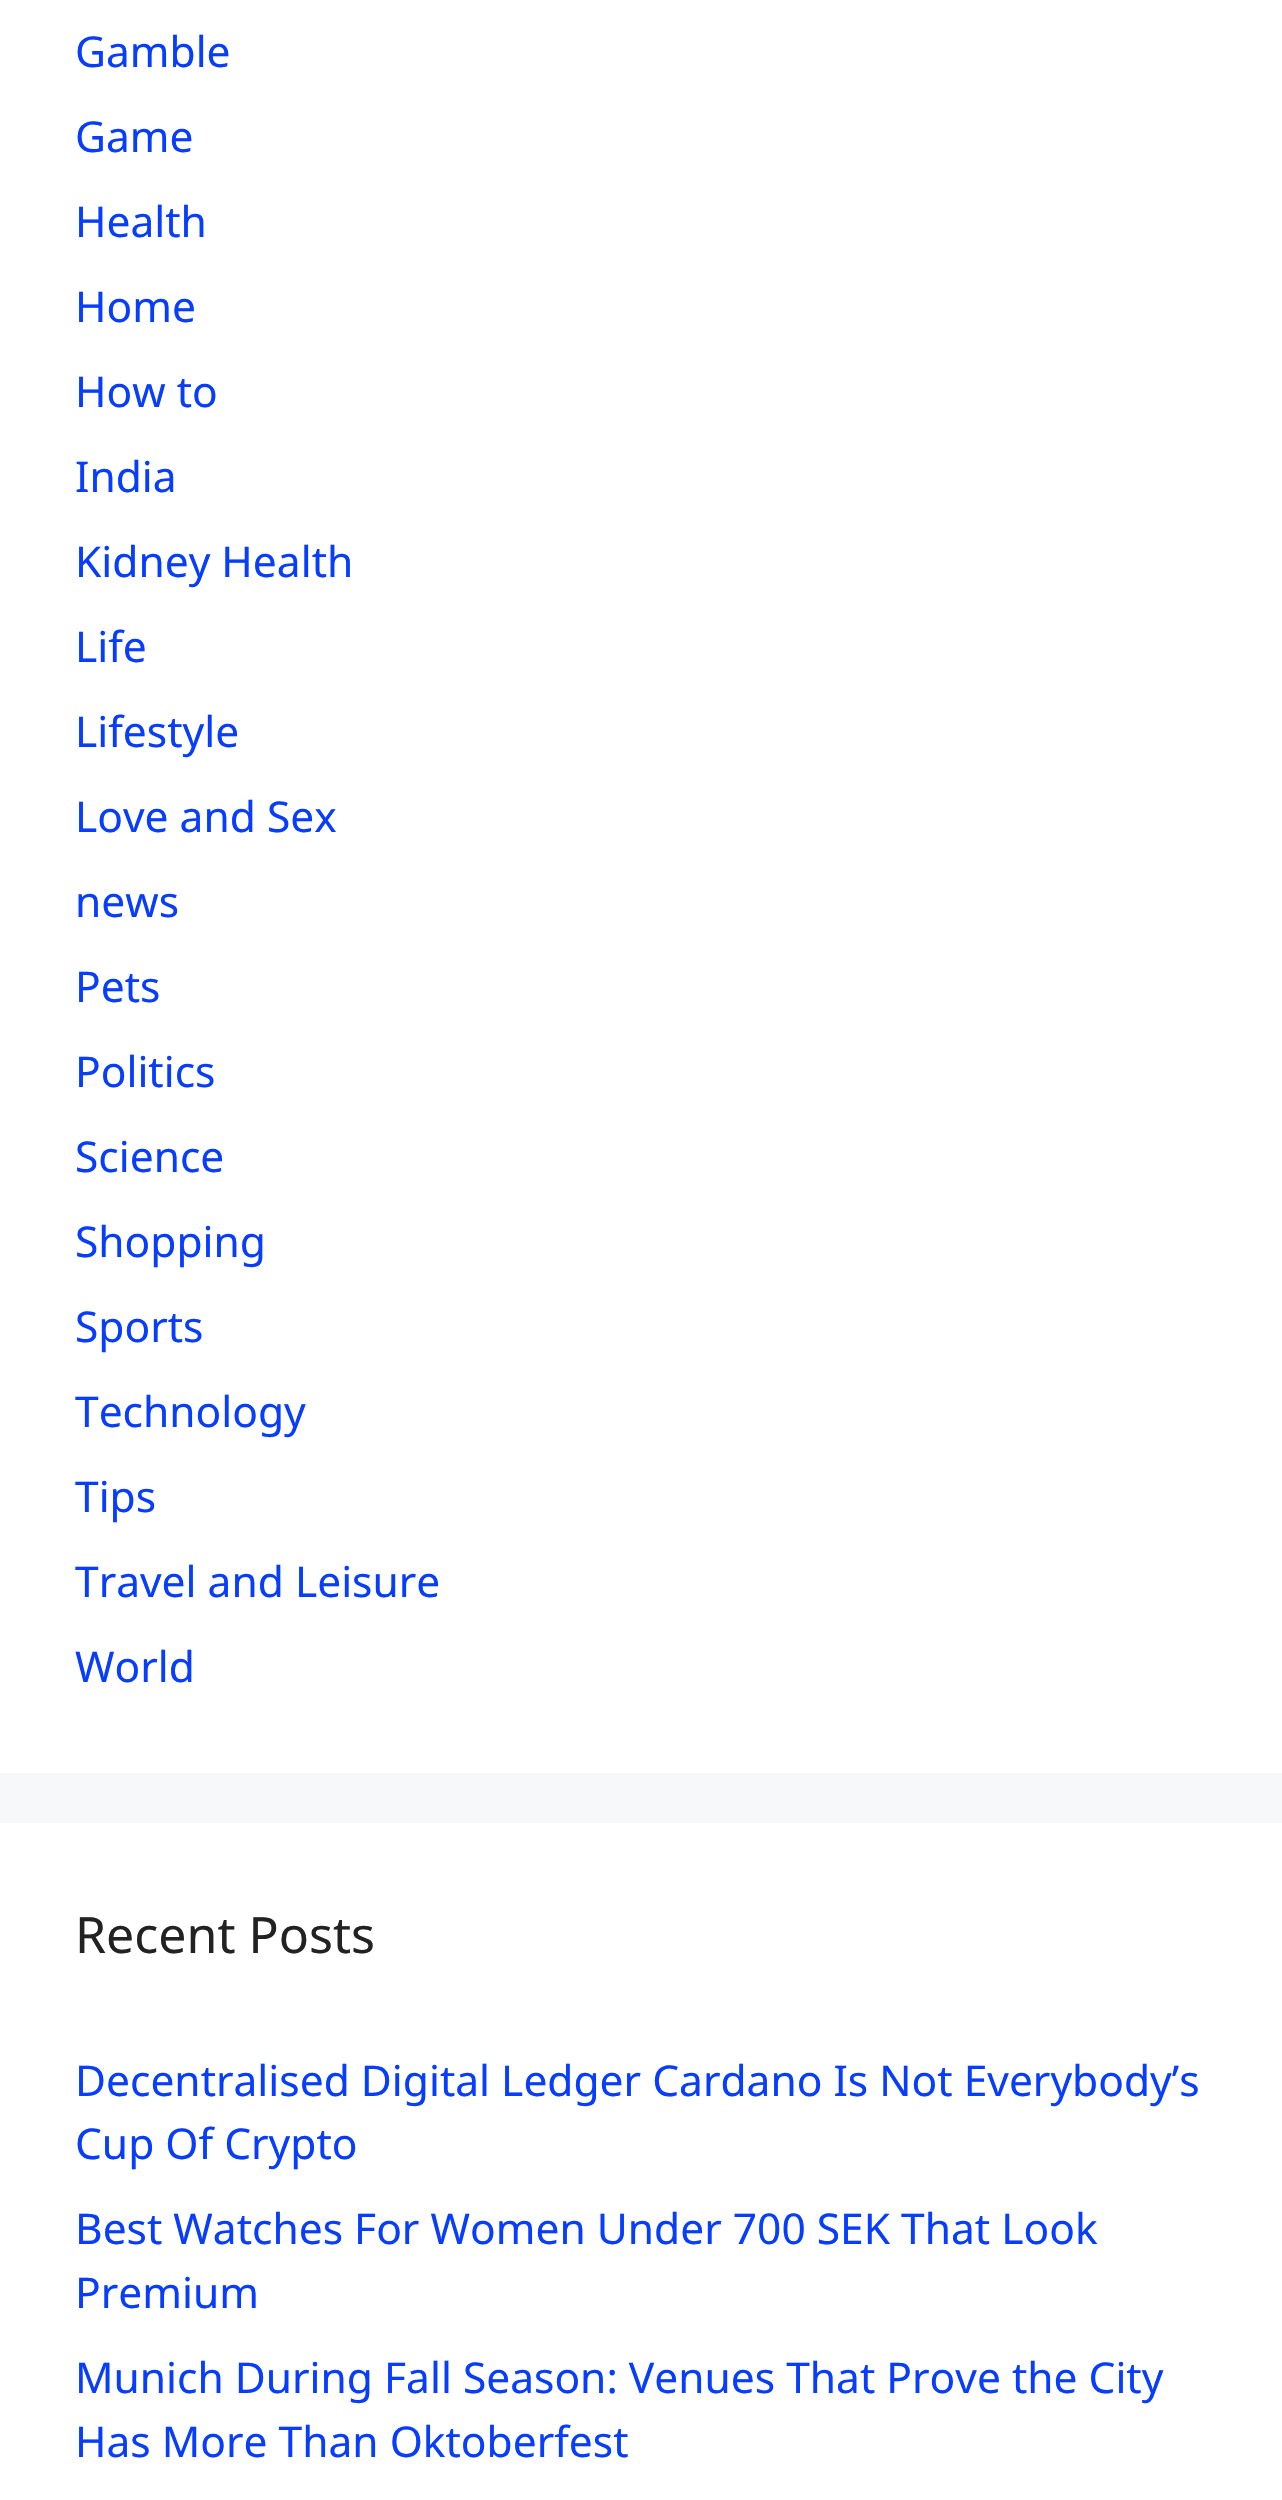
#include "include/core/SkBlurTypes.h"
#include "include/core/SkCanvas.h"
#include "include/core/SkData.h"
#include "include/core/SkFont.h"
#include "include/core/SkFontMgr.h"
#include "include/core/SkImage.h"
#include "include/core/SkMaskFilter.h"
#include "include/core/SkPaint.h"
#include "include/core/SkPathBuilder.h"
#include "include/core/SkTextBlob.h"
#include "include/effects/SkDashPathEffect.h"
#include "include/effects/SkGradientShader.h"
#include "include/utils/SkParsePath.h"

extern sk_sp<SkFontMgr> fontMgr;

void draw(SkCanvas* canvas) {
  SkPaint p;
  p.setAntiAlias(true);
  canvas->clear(SkColorSetRGB(247, 248, 249));
  p.setColor(SK_ColorWHITE);
  canvas->drawRect(SkRect::MakeLTRB(0, 0, 1282, 1773), p);
  canvas->drawRect(SkRect::MakeLTRB(0, 1823, 1282, 2500), p);
  SkFont font1(fontMgr->matchFamilyStyle("Noto Sans", SkFontStyle::Normal()), 42.5f);
  font1.setSubpixel(true);
  p.setColor(SkColorSetRGB(7, 61, 255));
  canvas->drawString("Gamble", 75, 67, font1, p);
  canvas->drawString("Game", 75, 152, font1, p);
  canvas->drawString("Health", 75, 237, font1, p);
  canvas->drawString("Home", 75, 322, font1, p);
  canvas->drawString("How to", 75, 407, font1, p);
  canvas->drawString("India", 75, 492, font1, p);
  canvas->drawString("Kidney Health", 75, 577, font1, p);
  canvas->drawString("Life", 75, 662, font1, p);
  canvas->drawString("Lifestyle", 75, 747, font1, p);
  canvas->drawString("Love and Sex", 75, 832, font1, p);
  canvas->drawString("news", 75, 917, font1, p);
  canvas->drawString("Pets", 75, 1002, font1, p);
  canvas->drawString("Politics", 75, 1087, font1, p);
  canvas->drawString("Science", 75, 1172, font1, p);
  canvas->drawString("Shopping", 75, 1257, font1, p);
  canvas->drawString("Sports", 75, 1342, font1, p);
  canvas->drawString("Technology", 75, 1427, font1, p);
  canvas->drawString("Tips", 75, 1512, font1, p);
  canvas->drawString("Travel and Leisure", 75, 1597, font1, p);
  canvas->drawString("World", 75, 1682, font1, p);
  SkFont font2(fontMgr->matchFamilyStyle("Noto Sans", SkFontStyle::Normal()), 50);
  font2.setSubpixel(true);
  p.setColor(SkColorSetRGB(34, 34, 34));
  canvas->drawString("Recent Posts", 75, 1953, font2, p);
  p.setColor(SkColorSetRGB(7, 61, 255));
  canvas->drawString("Decentralised Digital Ledger Cardano Is Not Everybody’s", 75, 2096, font1, p);
  canvas->drawString("Cup Of Crypto", 75, 2159, font1, p);
  canvas->drawString("Best Watches For Women Under 700 SEK That Look", 75, 2244, font1, p);
  canvas->drawString("Premium", 75, 2308, font1, p);
  canvas->drawString("Munich During Fall Season: Venues That Prove the City", 75, 2393, font1, p);
  canvas->drawString("Has More Than Oktoberfest", 75, 2457, font1, p);
}
